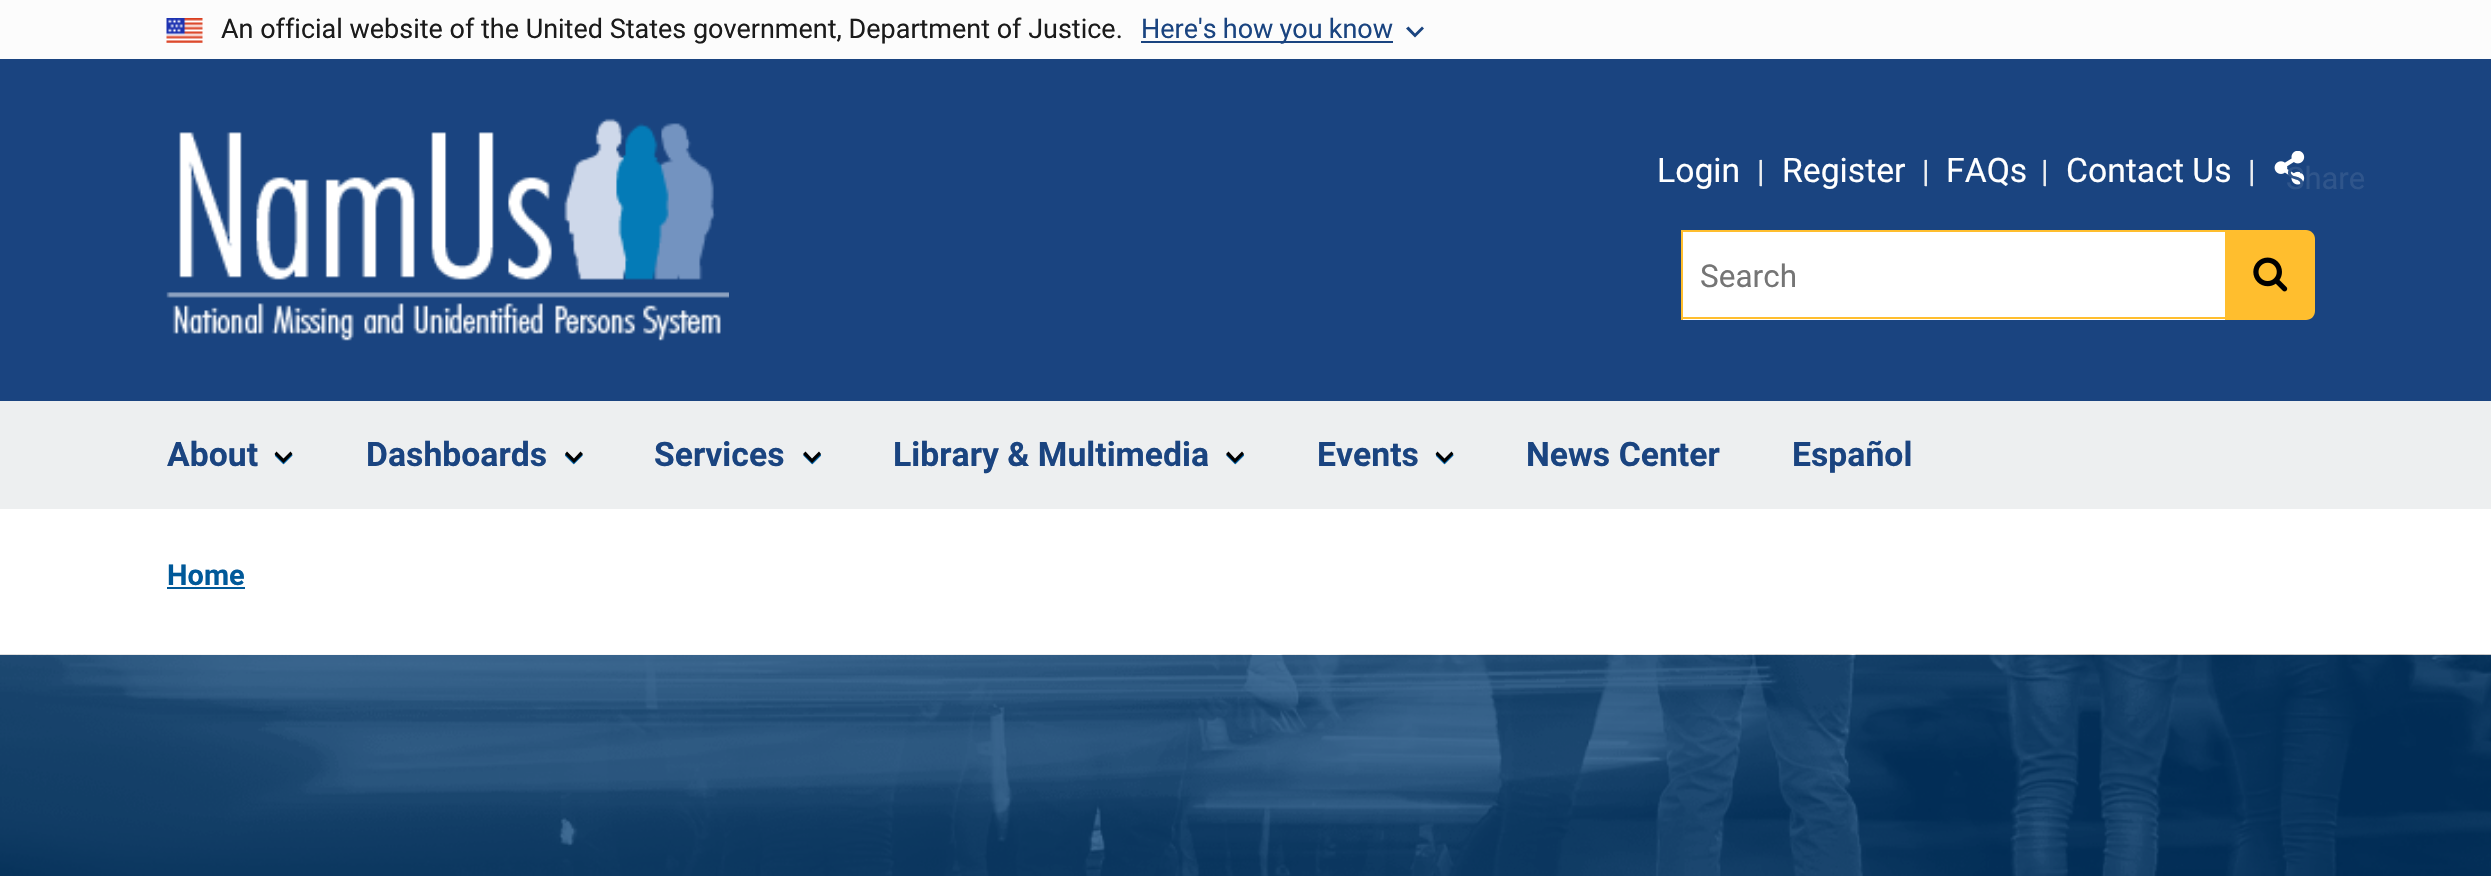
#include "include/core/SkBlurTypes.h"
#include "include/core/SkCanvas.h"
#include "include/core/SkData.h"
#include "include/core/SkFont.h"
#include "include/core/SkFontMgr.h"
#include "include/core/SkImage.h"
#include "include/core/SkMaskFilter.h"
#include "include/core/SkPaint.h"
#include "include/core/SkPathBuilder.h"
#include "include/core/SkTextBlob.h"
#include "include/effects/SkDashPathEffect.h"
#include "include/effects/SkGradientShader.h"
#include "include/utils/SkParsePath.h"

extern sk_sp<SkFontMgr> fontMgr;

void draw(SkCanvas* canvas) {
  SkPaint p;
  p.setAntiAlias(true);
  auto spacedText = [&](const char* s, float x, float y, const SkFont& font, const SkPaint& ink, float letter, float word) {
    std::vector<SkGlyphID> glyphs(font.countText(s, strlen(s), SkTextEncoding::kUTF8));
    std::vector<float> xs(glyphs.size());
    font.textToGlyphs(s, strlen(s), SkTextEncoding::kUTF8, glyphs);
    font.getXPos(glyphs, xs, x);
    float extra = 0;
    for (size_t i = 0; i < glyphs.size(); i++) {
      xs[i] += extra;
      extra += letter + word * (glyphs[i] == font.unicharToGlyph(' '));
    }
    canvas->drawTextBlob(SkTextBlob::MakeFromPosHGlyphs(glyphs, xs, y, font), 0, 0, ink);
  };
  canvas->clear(SK_ColorWHITE);
  p.setColor(SkColorSetRGB(252, 252, 252));
  canvas->drawRect(SkRect::MakeLTRB(0, 0, 2491, 59), p);
  canvas->drawImageRect(SkImages::DeferredFromEncodedData(SkData::MakeFromFileName("images/1.png")), SkRect::MakeLTRB(166, 18, 203, 43), SkSamplingOptions());
  p.setColor(SkColorSetRGB(26, 68, 128));
  canvas->drawRect(SkRect::MakeLTRB(1141, 41, 1393, 43), p);
  canvas->drawPath(SkPathBuilder().moveTo(1422, 26.5f).lineTo(1415, 33.5f).lineTo(1408.5f, 26.5f).lineTo(1406, 28.5f).lineTo(1415, 37.5f).lineTo(1424, 28.5f).close().detach(), p);
  canvas->drawRect(SkRect::MakeLTRB(0, 59, 2491, 401), p);
  canvas->drawImageRect(SkImages::DeferredFromEncodedData(SkData::MakeFromFileName("images/2.png")), SkRect::MakeLTRB(166, 118, 729, 341), SkSamplingOptions());
  p.setColor(SkColorSetRGB(237, 239, 240));
  canvas->drawRect(SkRect::MakeLTRB(0, 401, 2491, 509), p);
  canvas->drawImageRect(SkImages::DeferredFromEncodedData(SkData::MakeFromFileName("images/3.png")), SkRect::MakeLTRB(2274, 151, 2305, 185), SkSamplingOptions());
  p.setColor(SK_ColorWHITE);
  canvas->drawRect(SkRect::MakeLTRB(1683, 232, 2225, 320), p);
  p.setColor(SkColorSetRGB(255, 190, 46));
  canvas->drawRect(SkRect::MakeLTRB(1681, 230, 2225, 232), p);
  canvas->drawRect(SkRect::MakeLTRB(1681, 317, 2225, 319), p);
  canvas->drawRect(SkRect::MakeLTRB(1681, 230, 1683, 320), p);
  canvas->drawPath(SkPathBuilder().moveTo(2225, 230).lineTo(2306, 230).cubicTo(2311, 230, 2315, 234, 2315, 239).lineTo(2315, 311).cubicTo(2315, 316, 2311, 320, 2306, 320).lineTo(2225, 320).close().detach(), p);
  canvas->drawImageRect(SkImages::DeferredFromEncodedData(SkData::MakeFromFileName("images/4.png")), SkRect::MakeLTRB(2253, 257, 2288, 292), SkSamplingOptions());
  canvas->drawImageRect(SkImages::DeferredFromEncodedData(SkData::MakeFromFileName("images/5.png")), SkRect::MakeLTRB(275, 453, 293, 465), SkSamplingOptions());
  p.setColor(SK_ColorBLACK);
  canvas->drawPath(SkPathBuilder().moveTo(290.5f, 451.5f).lineTo(283.5f, 458.5f).lineTo(276.5f, 451.5f).lineTo(274.5f, 454).lineTo(283.5f, 463).lineTo(292.5f, 454).close().detach(), p);
  canvas->drawImageRect(SkImages::DeferredFromEncodedData(SkData::MakeFromFileName("images/6.png")), SkRect::MakeLTRB(565, 454, 583, 465), SkSamplingOptions());
  canvas->drawPath(SkPathBuilder().moveTo(580.5f, 451.5f).lineTo(574, 458.5f).lineTo(567, 451.5f).lineTo(565, 454).lineTo(574, 463).lineTo(583, 454).close().detach(), p);
  canvas->drawImageRect(SkImages::DeferredFromEncodedData(SkData::MakeFromFileName("images/7.png")), SkRect::MakeLTRB(803, 454, 821, 465), SkSamplingOptions());
  canvas->drawPath(SkPathBuilder().moveTo(819, 451.5f).lineTo(812, 458.5f).lineTo(805.5f, 451.5f).lineTo(803, 454).lineTo(812, 463).lineTo(821, 454).close().detach(), p);
  canvas->drawImageRect(SkImages::DeferredFromEncodedData(SkData::MakeFromFileName("images/7.png")), SkRect::MakeLTRB(1226, 454, 1244, 465), SkSamplingOptions());
  canvas->drawPath(SkPathBuilder().moveTo(1242, 451.5f).lineTo(1235, 458.5f).lineTo(1228.5f, 451.5f).lineTo(1226, 454).lineTo(1235, 463).lineTo(1244, 454).close().detach(), p);
  canvas->drawImageRect(SkImages::DeferredFromEncodedData(SkData::MakeFromFileName("images/5.png")), SkRect::MakeLTRB(1436, 453, 1454, 465), SkSamplingOptions());
  canvas->drawPath(SkPathBuilder().moveTo(1451.5f, 451.5f).lineTo(1444.5f, 458.5f).lineTo(1437.5f, 451.5f).lineTo(1435.5f, 454).lineTo(1444.5f, 463).lineTo(1453.5f, 454).close().detach(), p);
  p.setColor(SkColorSetRGB(0, 89, 153));
  canvas->drawRect(SkRect::MakeLTRB(167, 587, 245, 589), p);
  canvas->drawImageRect(SkImages::DeferredFromEncodedData(SkData::MakeFromFileName("images/8.png")), SkRect::MakeLTRB(0, 654, 2491, 876), SkSamplingOptions());
  SkFont font1(fontMgr->matchFamilyStyle("Roboto", SkFontStyle::Normal()), 27);
  font1.setSubpixel(true);
  p.setColor(SkColorSetRGB(27, 27, 27));
  canvas->drawString("An official website of the United States government, Department of Justice.", 221, 38, font1, p);
  p.setColor(SkColorSetRGB(26, 68, 128));
  spacedText("Here's how you know", 1141, 38, font1, p, 0, -0.5f);
  SkFont font2(fontMgr->matchFamilyStyle("Roboto", SkFontStyle::Normal()), 33.75f);
  font2.setSubpixel(true);
  p.setColor(SK_ColorWHITE);
  canvas->drawString("Login", 1657, 182, font2, p);
  SkFont font3(fontMgr->matchFamilyStyle("Roboto", SkFontStyle::Normal()), 31);
  font3.setSubpixel(true);
  p.setColor(SkColorSetRGB(237, 239, 240));
  canvas->drawString("|", 1757, 182, font3, p);
  p.setColor(SK_ColorWHITE);
  canvas->drawString("Register", 1782, 182, font2, p);
  p.setColor(SkColorSetRGB(237, 239, 240));
  canvas->drawString("|", 1922, 182, font3, p);
  p.setColor(SK_ColorWHITE);
  canvas->drawString("FAQs", 1946, 182, font2, p);
  p.setColor(SkColorSetRGB(237, 239, 240));
  canvas->drawString("|", 2041, 182, font3, p);
  p.setColor(SK_ColorWHITE);
  canvas->drawString("Contact Us", 2066, 182, font2, p);
  p.setColor(SkColorSetRGB(237, 239, 240));
  canvas->drawString("|", 2248, 182, font3, p);
  p.setColor(SkColorSetRGB(47, 85, 139));
  canvas->drawString("Share", 2286, 189, font3, p);
  SkFont font4(fontMgr->matchFamilyStyle("Roboto", SkFontStyle::Normal()), 31.5f);
  font4.setSubpixel(true);
  p.setColor(SkColorSetRGB(117, 117, 117));
  canvas->drawString("Search", 1700, 287, font4, p);
  SkFont font5(fontMgr->matchFamilyStyle("Roboto", SkFontStyle::Bold()), 33.75f);
  font5.setSubpixel(true);
  p.setColor(SkColorSetRGB(26, 68, 128));
  canvas->drawString("About", 167, 466, font5, p);
  canvas->drawString("Dashboards", 366, 466, font5, p);
  canvas->drawString("Services", 654, 466, font5, p);
  canvas->drawString("Library & Multimedia", 893, 466, font5, p);
  canvas->drawString("Events", 1317, 466, font5, p);
  canvas->drawString("News Center", 1526, 466, font5, p);
  canvas->drawString("Español", 1792, 466, font5, p);
  SkFont font6(fontMgr->matchFamilyStyle("Roboto", SkFontStyle::Bold()), 29);
  font6.setSubpixel(true);
  p.setColor(SkColorSetRGB(0, 89, 153));
  canvas->drawString("Home", 167, 585, font6, p);
}
